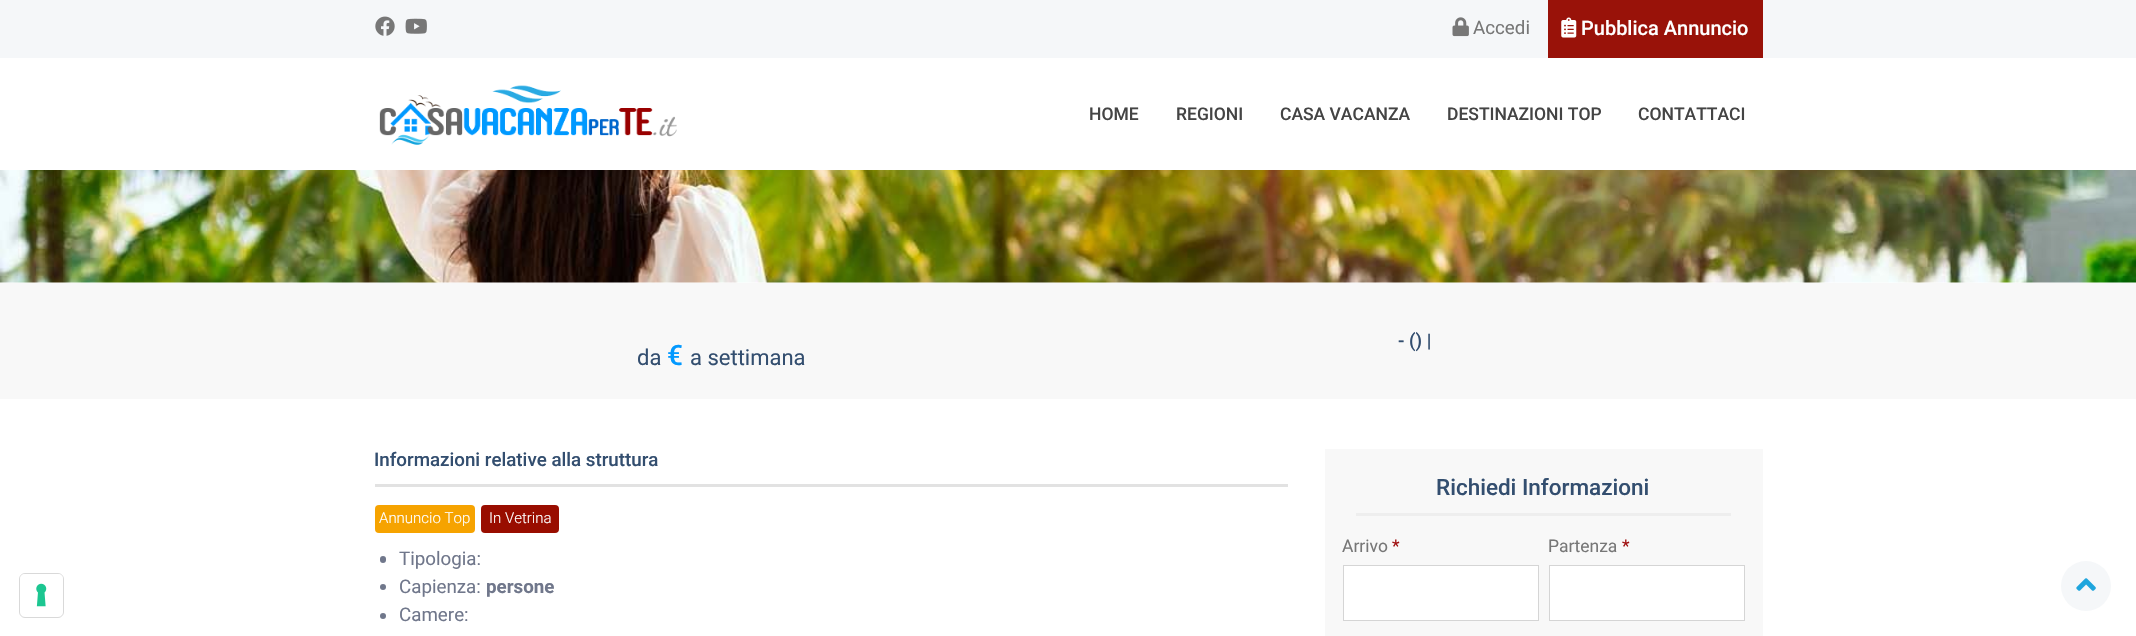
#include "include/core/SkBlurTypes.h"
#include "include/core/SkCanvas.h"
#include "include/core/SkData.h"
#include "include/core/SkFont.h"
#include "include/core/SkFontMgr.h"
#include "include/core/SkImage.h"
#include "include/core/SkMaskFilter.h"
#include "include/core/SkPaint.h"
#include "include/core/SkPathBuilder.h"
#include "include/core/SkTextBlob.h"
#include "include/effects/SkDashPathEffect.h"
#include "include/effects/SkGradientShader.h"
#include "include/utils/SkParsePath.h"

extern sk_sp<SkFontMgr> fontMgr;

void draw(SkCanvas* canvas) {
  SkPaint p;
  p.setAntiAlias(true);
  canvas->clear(SK_ColorWHITE);
  p.setColor(SkColorSetRGB(245, 247, 249));
  canvas->drawRect(SkRect::MakeLTRB(0, 0, 2136, 58), p);
  canvas->drawImageRect(SkImages::DeferredFromEncodedData(SkData::MakeFromFileName("images/1.png")), SkRect::MakeLTRB(375, 16, 395, 36), SkSamplingOptions());
  canvas->drawImageRect(SkImages::DeferredFromEncodedData(SkData::MakeFromFileName("images/2.png")), SkRect::MakeLTRB(405, 18, 427, 34), SkSamplingOptions());
  canvas->drawImageRect(SkImages::DeferredFromEncodedData(SkData::MakeFromFileName("images/3.png")), SkRect::MakeLTRB(1452, 17, 1469, 37), SkSamplingOptions());
  p.setColor(SkColorSetRGB(153, 18, 9));
  canvas->drawRect(SkRect::MakeLTRB(1548, 0, 1763, 58), p);
  canvas->drawImageRect(SkImages::DeferredFromEncodedData(SkData::MakeFromFileName("images/4.png")), SkRect::MakeLTRB(1561, 17, 1577, 38), SkSamplingOptions());
  canvas->drawImageRect(SkImages::DeferredFromEncodedData(SkData::MakeFromFileName("images/5.png")), SkRect::MakeLTRB(379, 85, 677, 145), SkSamplingOptions());
  canvas->drawImageRect(SkImages::DeferredFromEncodedData(SkData::MakeFromFileName("images/6.png")), SkRect::MakeLTRB(0, 170, 2136, 283), SkSamplingOptions());
  p.setColor(SkColorSetRGB(248, 248, 248));
  canvas->drawRect(SkRect::MakeLTRB(0, 283, 2136, 399), p);
  p.setStyle(SkPaint::kStroke_Style);
  p.setStrokeWidth(1);
  p.setColor(SkColorSetRGB(217, 217, 217));
  canvas->drawRoundRect(SkRect::MakeLTRB(19.5f, 573.5f, 63.5f, 617.5f), 5.5f, 5.5f, p);
  p.setStyle(SkPaint::kFill_Style);
  p.setColor(SK_ColorWHITE);
  canvas->drawRoundRect(SkRect::MakeLTRB(20, 574, 63, 616), 5, 5, p);
  canvas->drawImageRect(SkImages::DeferredFromEncodedData(SkData::MakeFromFileName("images/7.png")), SkRect::MakeLTRB(36, 583, 47, 607), SkSamplingOptions());
  p.setColor(SkColorSetRGB(226, 226, 226));
  canvas->drawRect(SkRect::MakeLTRB(375, 484, 1288, 487), p);
  p.setColor(SkColorSetRGB(246, 163, 0));
  canvas->drawRoundRect(SkRect::MakeLTRB(375, 505, 475, 533), 4, 4, p);
  p.setColor(SkColorSetRGB(153, 13, 0));
  canvas->drawRoundRect(SkRect::MakeLTRB(481, 505, 559, 533), 4, 4, p);
  p.setColor(SkColorSetRGB(112, 119, 139));
  canvas->drawRoundRect(SkRect::MakeLTRB(380, 556, 386, 563), 3, 3, p);
  canvas->drawCircle(383, 587, 3, p);
  canvas->drawCircle(383, 616, 3, p);
  p.setColor(SkColorSetRGB(248, 248, 248));
  canvas->drawRect(SkRect::MakeLTRB(1325, 449, 1763, 636), p);
  p.setColor(SkColorSetRGB(238, 238, 238));
  canvas->drawRect(SkRect::MakeLTRB(1356, 513, 1731, 516), p);
  p.setColor(SK_ColorWHITE);
  canvas->drawRect(SkRect::MakeLTRB(1343.5f, 565.5f, 1538.5f, 620.5f), p);
  p.setStyle(SkPaint::kStroke_Style);
  p.setColor(SkColorSetRGB(213, 213, 213));
  canvas->drawRect(SkRect::MakeLTRB(1343.5f, 565.5f, 1538.5f, 620.5f), p);
  p.setStyle(SkPaint::kFill_Style);
  p.setColor(SK_ColorWHITE);
  canvas->drawRect(SkRect::MakeLTRB(1549.5f, 565.5f, 1744.5f, 620.5f), p);
  p.setStyle(SkPaint::kStroke_Style);
  p.setColor(SkColorSetRGB(213, 213, 213));
  canvas->drawRect(SkRect::MakeLTRB(1549.5f, 565.5f, 1744.5f, 620.5f), p);
  p.setStyle(SkPaint::kFill_Style);
  p.setColor(SkColorSetRGB(245, 247, 249));
  canvas->drawCircle(2086, 586, 25, p);
  canvas->drawImageRect(SkImages::DeferredFromEncodedData(SkData::MakeFromFileName("images/8.png")), SkRect::MakeLTRB(2076, 578, 2096, 591), SkSamplingOptions());
  SkFont font1(fontMgr->matchFamilyStyle("Roboto", SkFontStyle::Normal()), 18.75f);
  font1.setSubpixel(true);
  p.setColor(SkColorSetRGB(119, 119, 119));
  canvas->drawString("Accedi", 1473, 34, font1, p);
  SkFont font2(fontMgr->matchFamilyStyle("Roboto", SkFontStyle(500, SkFontStyle::kNormal_Width, SkFontStyle::kUpright_Slant)), 20);
  font2.setSubpixel(true);
  p.setColor(SK_ColorWHITE);
  canvas->drawString("Pubblica Annuncio", 1581, 35, font2, p);
  SkFont font3(fontMgr->matchFamilyStyle("Roboto", SkFontStyle(500, SkFontStyle::kNormal_Width, SkFontStyle::kUpright_Slant)), 17.5f);
  font3.setSubpixel(true);
  p.setColor(SkColorSetRGB(68, 68, 68));
  canvas->drawString("HOME", 1089, 120, font3, p);
  canvas->drawString("REGIONI", 1176, 120, font3, p);
  canvas->drawString("CASA VACANZA", 1280, 120, font3, p);
  canvas->drawString("DESTINAZIONI TOP", 1447, 120, font3, p);
  canvas->drawString("CONTATTACI", 1638, 120, font3, p);
  SkFont font4(fontMgr->matchFamilyStyle("Roboto", SkFontStyle(500, SkFontStyle::kNormal_Width, SkFontStyle::kUpright_Slant)), 18.75f);
  font4.setSubpixel(true);
  p.setColor(SkColorSetRGB(51, 78, 111));
  canvas->drawString("- () |", 1398, 347, font4, p);
  SkFont font5(fontMgr->matchFamilyStyle("Roboto", SkFontStyle::Normal()), 22);
  font5.setSubpixel(true);
  canvas->drawString("da", 637, 365, font5, p);
  SkFont font6(fontMgr->matchFamilyStyle("Roboto", SkFontStyle(500, SkFontStyle::kNormal_Width, SkFontStyle::kUpright_Slant)), 28);
  font6.setSubpixel(true);
  p.setColor(SkColorSetRGB(2, 153, 255));
  canvas->drawString("€", 667, 365, font6, p);
  p.setColor(SkColorSetRGB(51, 78, 111));
  canvas->drawString("a settimana", 690, 365, font5, p);
  canvas->drawString("Informazioni relative alla struttura", 374, 466, font4, p);
  SkFont font7(fontMgr->matchFamilyStyle("Roboto", SkFontStyle(300, SkFontStyle::kNormal_Width, SkFontStyle::kUpright_Slant)), 15);
  font7.setSubpixel(true);
  p.setColor(SK_ColorWHITE);
  canvas->drawString("Annuncio Top", 379, 523, font7, p);
  canvas->drawString("In Vetrina", 489, 523, font7, p);
  p.setColor(SkColorSetRGB(112, 119, 139));
  canvas->drawString("Tipologia:", 399, 565, font1, p);
  canvas->drawString("Capienza:", 399, 593, font1, p);
  SkFont font8(fontMgr->matchFamilyStyle("Roboto", SkFontStyle::Bold()), 18.75f);
  font8.setSubpixel(true);
  canvas->drawString("persone", 486, 593, font8, p);
  canvas->drawString("Camere:", 399, 621, font1, p);
  SkFont font9(fontMgr->matchFamilyStyle("Roboto", SkFontStyle(500, SkFontStyle::kNormal_Width, SkFontStyle::kUpright_Slant)), 22.5f);
  font9.setSubpixel(true);
  p.setColor(SkColorSetRGB(51, 78, 111));
  canvas->drawString("Richiedi Informazioni", 1436, 495, font9, p);
  SkFont font10(fontMgr->matchFamilyStyle("Roboto", SkFontStyle::Normal()), 17.5f);
  font10.setSubpixel(true);
  p.setColor(SkColorSetRGB(119, 119, 119));
  canvas->drawString("Arrivo", 1342, 552, font10, p);
  p.setColor(SkColorSetRGB(160, 17, 18));
  canvas->drawString("*", 1392, 552, font10, p);
  p.setColor(SkColorSetRGB(119, 119, 119));
  canvas->drawString("Partenza", 1548, 552, font10, p);
  p.setColor(SkColorSetRGB(160, 17, 18));
  canvas->drawString("*", 1622, 552, font10, p);
}
